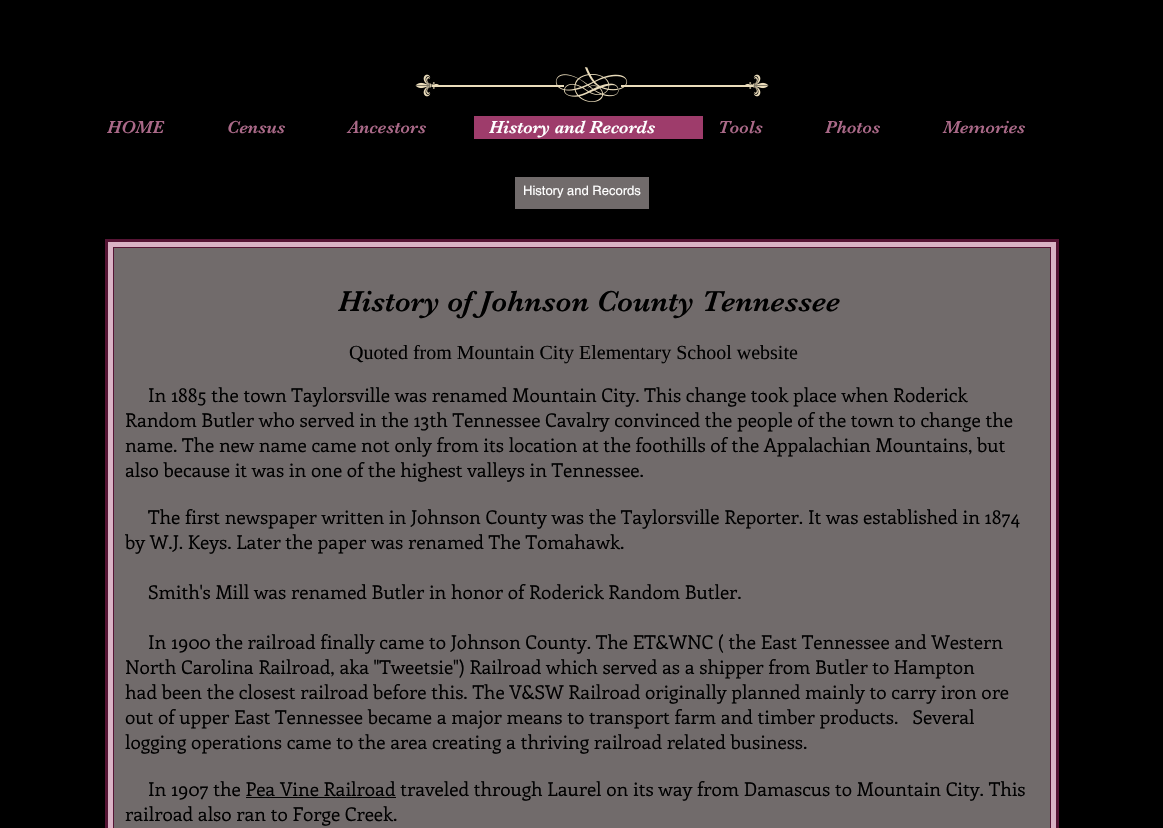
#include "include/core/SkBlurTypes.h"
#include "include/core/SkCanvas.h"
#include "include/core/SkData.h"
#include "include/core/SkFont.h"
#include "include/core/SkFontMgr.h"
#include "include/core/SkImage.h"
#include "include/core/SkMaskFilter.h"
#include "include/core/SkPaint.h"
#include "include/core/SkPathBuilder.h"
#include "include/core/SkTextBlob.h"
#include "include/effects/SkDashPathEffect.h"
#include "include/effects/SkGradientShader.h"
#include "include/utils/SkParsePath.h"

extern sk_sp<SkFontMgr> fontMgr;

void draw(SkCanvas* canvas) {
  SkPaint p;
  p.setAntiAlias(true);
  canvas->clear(SK_ColorBLACK);
  canvas->drawImageRect(SkImages::DeferredFromEncodedData(SkData::MakeFromFileName("images/1.png")), SkRect::MakeLTRB(415, 74, 439, 97), SkSamplingOptions());
  canvas->drawImageRect(SkImages::DeferredFromEncodedData(SkData::MakeFromFileName("images/2.png")), SkRect::MakeLTRB(555, 67, 628, 102), SkSamplingOptions());
  p.setColor(SkColorSetRGB(234, 220, 187));
  canvas->drawRect(SkRect::MakeLTRB(432, 85, 564, 87), p);
  canvas->drawImageRect(SkImages::DeferredFromEncodedData(SkData::MakeFromFileName("images/3.png")), SkRect::MakeLTRB(745, 74, 769, 97), SkSamplingOptions());
  canvas->drawRect(SkRect::MakeLTRB(621, 85, 753, 87), p);
  p.setColor(SkColorSetRGB(158, 60, 107));
  canvas->drawRect(SkRect::MakeLTRB(474, 116, 703, 139), p);
  p.setColor(SkColorSetRGB(113, 107, 107));
  canvas->drawRect(SkRect::MakeLTRB(515, 177, 649, 209), p);
  p.setColor(SkColorSetRGB(218, 179, 197));
  canvas->drawRect(SkRect::MakeLTRB(106.5f, 240.5f, 1057.5f, 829.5f), p);
  p.setStyle(SkPaint::kStroke_Style);
  p.setStrokeWidth(3);
  p.setColor(SkColorSetRGB(86, 20, 52));
  canvas->drawRect(SkRect::MakeLTRB(106.5f, 240.5f, 1057.5f, 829.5f), p);
  p.setStyle(SkPaint::kFill_Style);
  p.setColor(SkColorSetRGB(113, 107, 107));
  canvas->drawRect(SkRect::MakeLTRB(113.5f, 247.5f, 1050.5f, 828.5f), p);
  p.setStyle(SkPaint::kStroke_Style);
  p.setStrokeWidth(1);
  p.setColor(SkColorSetRGB(86, 20, 52));
  canvas->drawRect(SkRect::MakeLTRB(113.5f, 247.5f, 1050.5f, 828.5f), p);
  p.setStyle(SkPaint::kFill_Style);
  p.setColor(SK_ColorBLACK);
  canvas->drawRect(SkRect::MakeLTRB(246, 797, 396, 798), p);
  SkFont font1(fontMgr->matchFamilyStyle("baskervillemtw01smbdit", SkFontStyle::Normal()), 18);
  font1.setSubpixel(true);
  p.setColor(SkColorSetRGB(170, 105, 136));
  canvas->drawString("HOME", 107, 133, font1, p);
  canvas->drawString("Census", 227, 133, font1, p);
  canvas->drawString("Ancestors", 348, 133, font1, p);
  p.setColor(SK_ColorWHITE);
  canvas->drawString("History and Records", 489, 133, font1, p);
  p.setColor(SkColorSetRGB(170, 105, 136));
  canvas->drawString("Tools", 718, 133, font1, p);
  canvas->drawString("Photos", 825, 133, font1, p);
  canvas->drawString("Memories", 943, 133, font1, p);
  SkFont font2(fontMgr->matchFamilyStyle("helvetica", SkFontStyle::Normal()), 13);
  font2.setSubpixel(true);
  p.setColor(SK_ColorWHITE);
  canvas->drawString("History and Records", 523, 195, font2, p);
  SkFont font3(fontMgr->matchFamilyStyle("baskervillemtw01smbdit", SkFontStyle::Normal()), 30);
  font3.setSubpixel(true);
  p.setColor(SK_ColorBLACK);
  canvas->drawString("History of Johnson County Tennessee", 338, 311, font3, p);
  SkFont font4(fontMgr->matchFamilyStyle("Liberation Serif", SkFontStyle::Normal()), 20);
  font4.setSubpixel(true);
  canvas->drawString("Quoted from Mountain City Elementary School website", 349, 359, font4, p);
  SkFont font5(fontMgr->matchFamilyStyle("Enriqueta", SkFontStyle::Normal()), 19);
  font5.setSubpixel(true);
  canvas->drawString("In 1885 the town Taylorsville was renamed Mountain City. This change took place when Roderick", 148, 402, font5, p);
  canvas->drawString("Random Butler who served in the 13th Tennessee Cavalry convinced the people of the town to change the", 125, 427, font5, p);
  canvas->drawString("name. The new name came not only from its location at the foothills of the Appalachian Mountains, but", 125, 452, font5, p);
  canvas->drawString("also because it was in one of the highest valleys in Tennessee.", 125, 477, font5, p);
  canvas->drawString("The first newspaper written in Johnson County was the Taylorsville Reporter. It was established in 1874", 148, 524, font5, p);
  canvas->drawString("by W.J. Keys. Later the paper was renamed The Tomahawk.", 125, 549, font5, p);
  canvas->drawString("Smith's Mill was renamed Butler in honor of Roderick Random Butler.", 148, 599, font5, p);
  canvas->drawString("In 1900 the railroad finally came to Johnson County. The ET&WNC ( the East Tennessee and Western", 148, 649, font5, p);
  canvas->drawString("North Carolina Railroad, aka \"Tweetsie\") Railroad which served as a shipper from Butler to Hampton", 125, 674, font5, p);
  canvas->drawString("had been the closest railroad before this. The V&SW Railroad originally planned mainly to carry iron ore", 125, 699, font5, p);
  canvas->drawString("out of upper East Tennessee became a major means to transport farm and timber products.   Several", 125, 724, font5, p);
  canvas->drawString("logging operations came to the area creating a thriving railroad related business.", 125, 749, font5, p);
  canvas->drawString("In 1907 the Pea Vine Railroad traveled through Laurel on its way from Damascus to Mountain City. This", 148, 796, font5, p);
  canvas->drawString("railroad also ran to Forge Creek.", 125, 821, font5, p);
}
